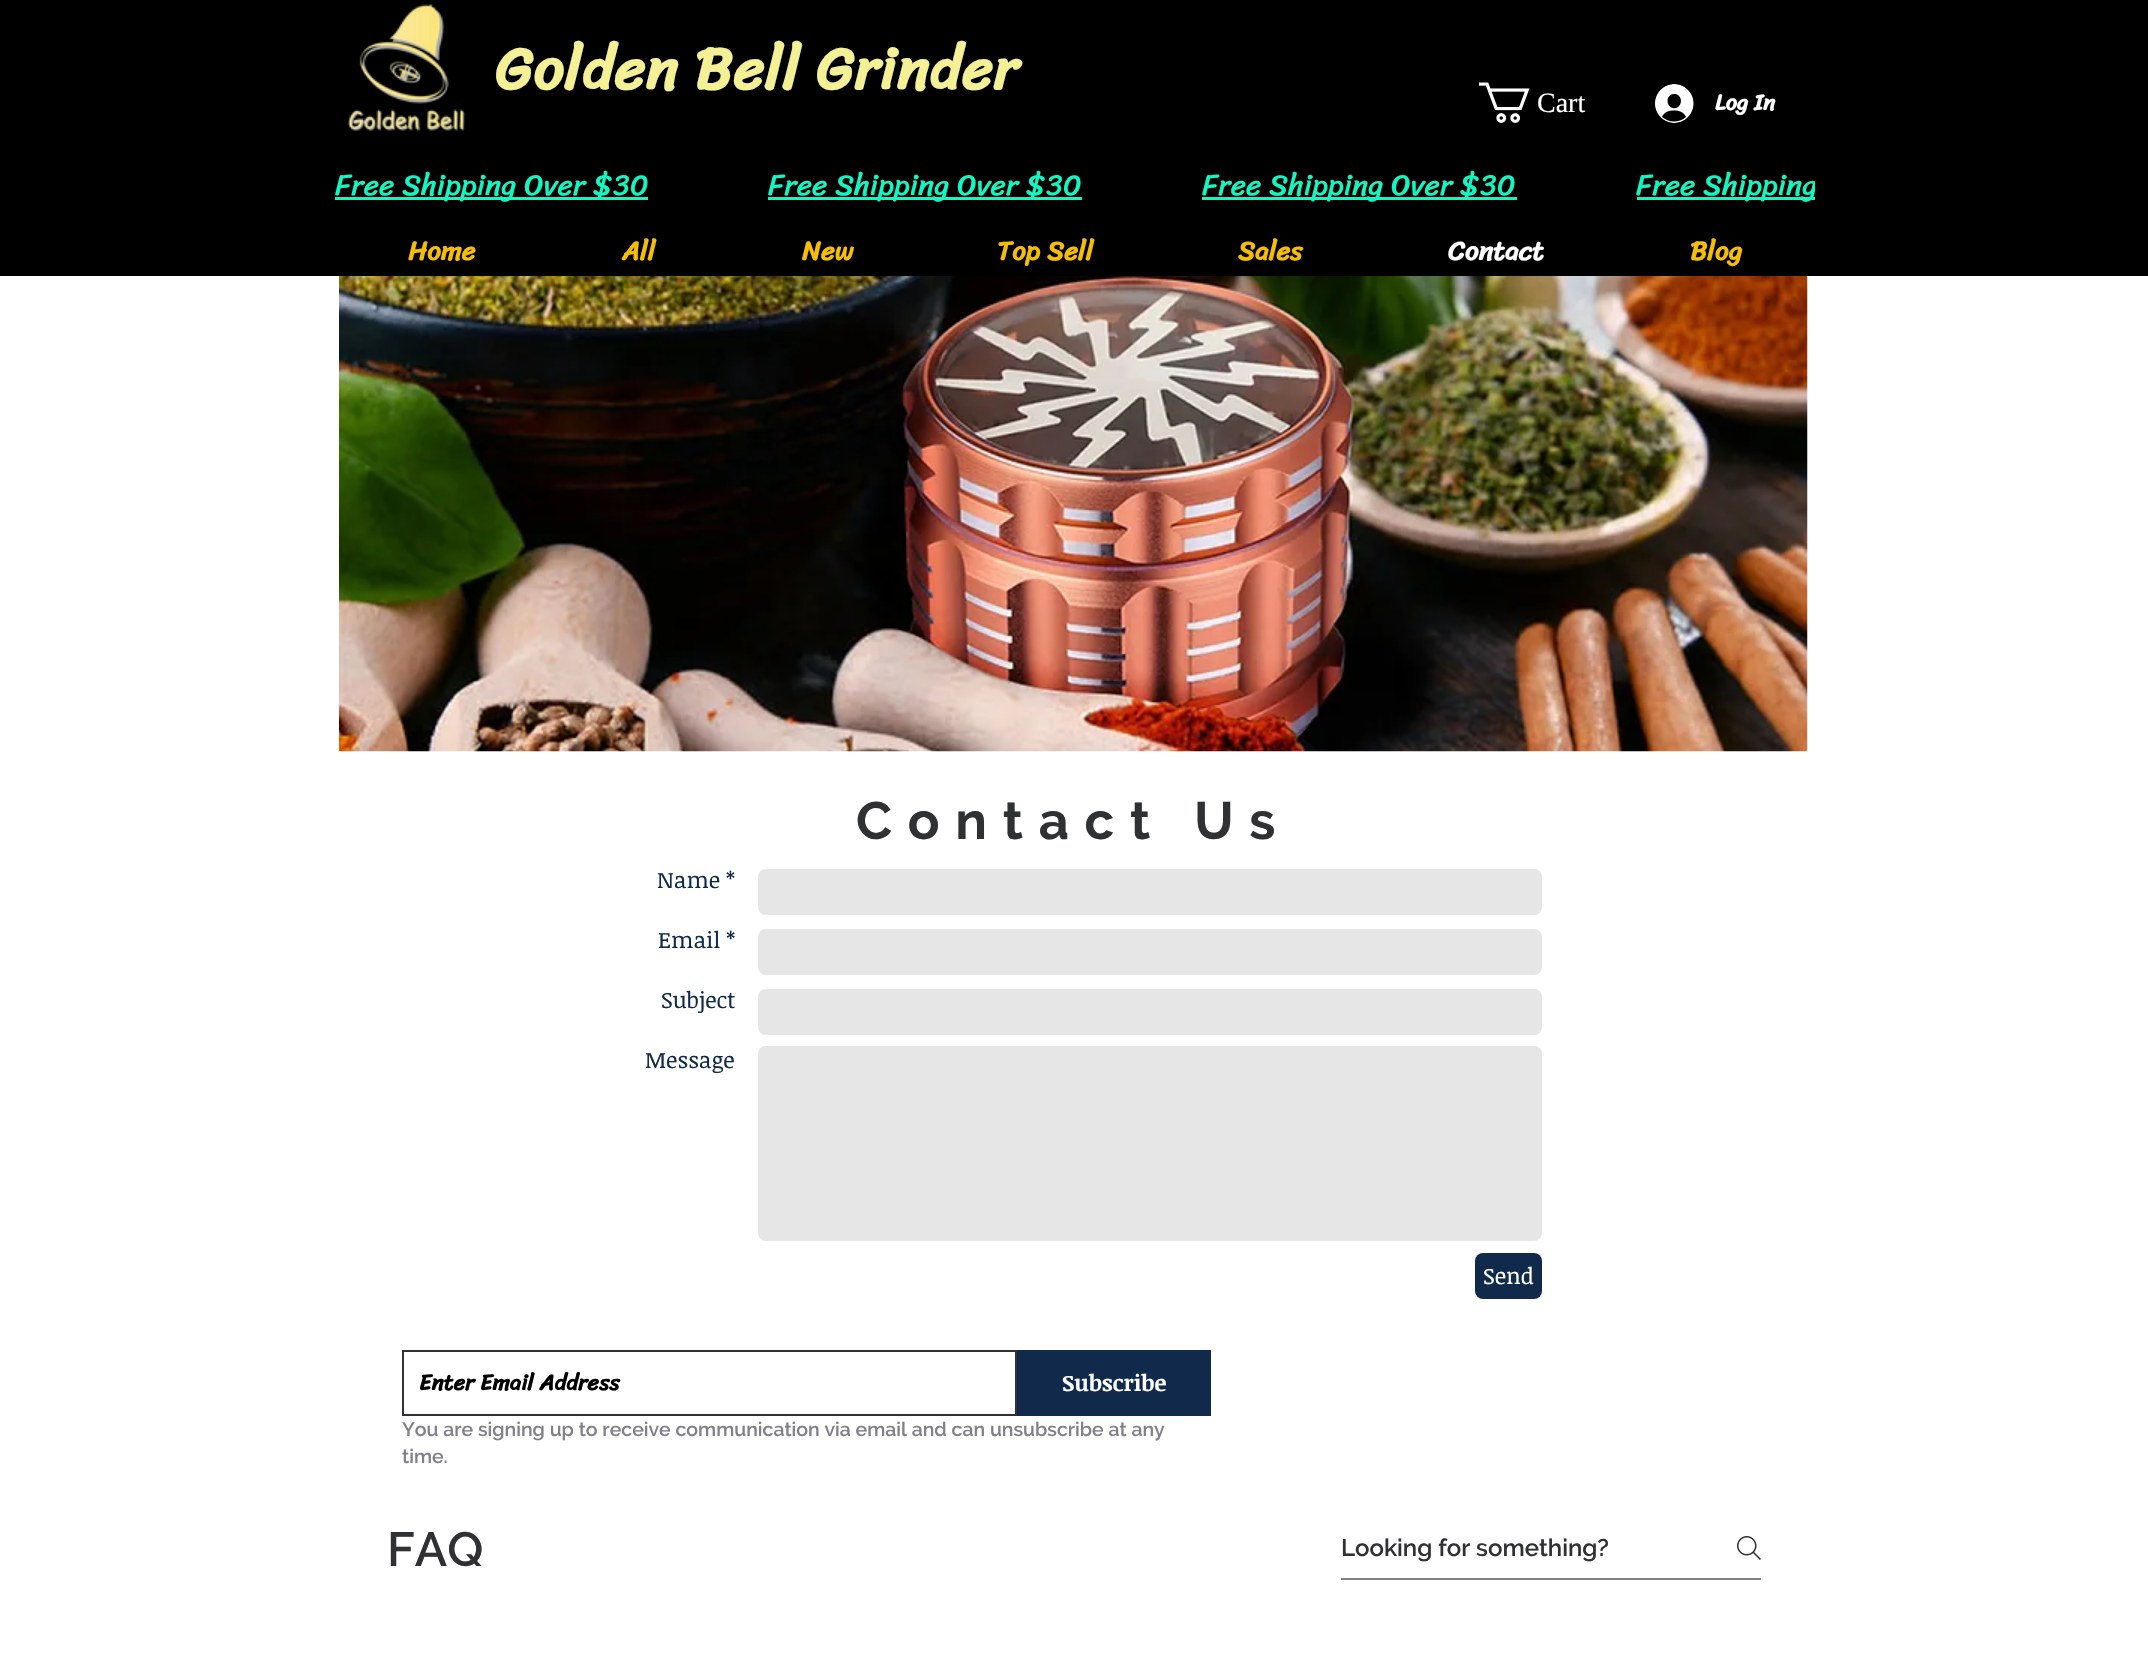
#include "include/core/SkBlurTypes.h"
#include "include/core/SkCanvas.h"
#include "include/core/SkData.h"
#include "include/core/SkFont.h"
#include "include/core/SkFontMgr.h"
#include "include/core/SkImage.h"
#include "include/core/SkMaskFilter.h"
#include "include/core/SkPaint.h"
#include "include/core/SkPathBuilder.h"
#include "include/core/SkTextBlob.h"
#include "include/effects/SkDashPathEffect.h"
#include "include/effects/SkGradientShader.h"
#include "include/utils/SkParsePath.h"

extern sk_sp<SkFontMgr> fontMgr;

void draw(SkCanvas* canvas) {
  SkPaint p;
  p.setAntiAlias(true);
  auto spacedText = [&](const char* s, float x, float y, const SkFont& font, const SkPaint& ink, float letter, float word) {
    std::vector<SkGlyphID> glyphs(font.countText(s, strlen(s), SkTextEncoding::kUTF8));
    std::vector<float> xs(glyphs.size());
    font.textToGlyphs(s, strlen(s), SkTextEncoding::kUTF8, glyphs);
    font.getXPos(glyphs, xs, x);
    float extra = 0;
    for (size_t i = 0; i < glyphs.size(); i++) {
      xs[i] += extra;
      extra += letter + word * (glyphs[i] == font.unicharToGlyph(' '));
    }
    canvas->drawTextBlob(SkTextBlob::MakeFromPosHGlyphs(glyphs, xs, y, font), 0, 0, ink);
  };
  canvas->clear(SK_ColorWHITE);
  p.setColor(SK_ColorBLACK);
  canvas->drawRect(SkRect::MakeLTRB(0, 0, 2148, 276), p);
  canvas->drawImageRect(SkImages::DeferredFromEncodedData(SkData::MakeFromFileName("images/1.png")), SkRect::MakeLTRB(347, 4, 466, 131), SkSamplingOptions());
  canvas->drawImageRect(SkImages::DeferredFromEncodedData(SkData::MakeFromFileName("images/2.png")), SkRect::MakeLTRB(1479, 82, 1530, 123), SkSamplingOptions());
  canvas->drawImageRect(SkImages::DeferredFromEncodedData(SkData::MakeFromFileName("images/3.png")), SkRect::MakeLTRB(1655, 84, 1694, 123), SkSamplingOptions());
  p.setColor(SkColorSetRGB(20, 245, 193));
  canvas->drawRect(SkRect::MakeLTRB(335, 197, 648, 200), p);
  canvas->drawRect(SkRect::MakeLTRB(768, 197, 1082, 200), p);
  canvas->drawRect(SkRect::MakeLTRB(1202, 197, 1517, 200), p);
  canvas->drawRect(SkRect::MakeLTRB(1637, 197, 1815, 200), p);
  canvas->drawImageRect(SkImages::DeferredFromEncodedData(SkData::MakeFromFileName("images/4.png")), SkRect::MakeLTRB(339, 276, 1808, 752), SkSamplingOptions());
  p.setColor(SkColorSetRGB(230, 230, 230));
  canvas->drawRoundRect(SkRect::MakeLTRB(758, 869, 1542, 915), 8, 8, p);
  canvas->drawRoundRect(SkRect::MakeLTRB(758, 929, 1542, 975), 8, 8, p);
  canvas->drawRoundRect(SkRect::MakeLTRB(758, 989, 1542, 1035), 8, 8, p);
  canvas->drawRoundRect(SkRect::MakeLTRB(758, 1046, 1542, 1241), 8, 8, p);
  p.setColor(SkColorSetRGB(17, 42, 75));
  canvas->drawRoundRect(SkRect::MakeLTRB(1475, 1253, 1542, 1299), 8, 8, p);
  p.setStyle(SkPaint::kStroke_Style);
  p.setStrokeWidth(2);
  p.setColor(SkColorSetRGB(48, 49, 50));
  canvas->drawRect(SkRect::MakeLTRB(403, 1351, 1016, 1415), p);
  p.setStyle(SkPaint::kFill_Style);
  p.setColor(SkColorSetRGB(17, 42, 75));
  canvas->drawRect(SkRect::MakeLTRB(1017, 1350, 1211, 1416), p);
  p.setColor(SkColorSetRGB(131, 131, 132));
  canvas->drawRect(SkRect::MakeLTRB(1341, 1578, 1761, 1580), p);
  canvas->drawImageRect(SkImages::DeferredFromEncodedData(SkData::MakeFromFileName("images/5.png")), SkRect::MakeLTRB(1737, 1536, 1761, 1560), SkSamplingOptions());
  SkFont font1(fontMgr->matchFamilyStyle("Sriracha", SkFontStyle::Bold()), 60);
  font1.setSubpixel(true);
  p.setColor(SkColorSetRGB(243, 240, 150));
  spacedText("Golden Bell Grinder", 495, 89, font1, p, 0.6f, 0);
  SkFont font2(fontMgr->matchFamilyStyle("Liberation Serif", SkFontStyle::Normal()), 28);
  font2.setSubpixel(true);
  p.setColor(SK_ColorWHITE);
  canvas->drawString("Cart", 1537, 112, font2, p);
  SkFont font3(fontMgr->matchFamilyStyle("Sriracha", SkFontStyle::Bold()), 22.5f);
  font3.setSubpixel(true);
  canvas->drawString("Log In", 1715, 110, font3, p);
  SkFont font4(fontMgr->matchFamilyStyle("Sriracha", SkFontStyle::Normal()), 30);
  font4.setSubpixel(true);
  p.setColor(SkColorSetRGB(20, 245, 193));
  canvas->drawString("Free Shipping Over $30", 335, 195, font4, p);
  canvas->drawString("Free Shipping Over $30", 768, 195, font4, p);
  canvas->drawString("Free Shipping Over $30", 1202, 195, font4, p);
  canvas->save();
  canvas->clipRect(SkRect::MakeLTRB(335, 0, 1815, 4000));
  canvas->drawString("Free Shipping", 1636, 195, font4, p);
  canvas->restore();
  SkFont font5(fontMgr->matchFamilyStyle("Sriracha", SkFontStyle::Bold()), 27);
  font5.setSubpixel(true);
  p.setColor(SkColorSetRGB(245, 190, 6));
  canvas->drawString("Home", 408, 260, font5, p);
  canvas->drawString("All", 622, 260, font5, p);
  canvas->drawString("New", 802, 260, font5, p);
  canvas->drawString("Top Sell", 997, 260, font5, p);
  canvas->drawString("Sales", 1238, 260, font5, p);
  p.setColor(SK_ColorWHITE);
  canvas->drawString("Contact", 1448, 260, font5, p);
  p.setColor(SkColorSetRGB(245, 190, 6));
  canvas->drawString("Blog", 1690, 260, font5, p);
  SkFont font6(fontMgr->matchFamilyStyle("Raleway", SkFontStyle::Bold()), 52.5f);
  font6.setSubpixel(true);
  p.setColor(SkColorSetRGB(48, 49, 50));
  spacedText("Contact Us", 856, 839, font6, p, 15.75f, 0);
  SkFont font7(fontMgr->matchFamilyStyle("Noticia Text", SkFontStyle::Normal()), 22.5f);
  font7.setSubpixel(true);
  p.setColor(SkColorSetRGB(17, 42, 75));
  canvas->drawString("Name *", 657, 888, font7, p);
  canvas->drawString("Email *", 658, 948, font7, p);
  canvas->drawString("Subject", 661, 1008, font7, p);
  canvas->drawString("Message", 645, 1068, font7, p);
  p.setColor(SK_ColorWHITE);
  canvas->drawString("Send", 1483, 1284, font7, p);
  p.setColor(SK_ColorBLACK);
  canvas->drawString("Enter Email Address", 419, 1390, font3, p);
  SkFont font8(fontMgr->matchFamilyStyle("Noticia Text", SkFontStyle::Bold()), 22.5f);
  font8.setSubpixel(true);
  p.setColor(SK_ColorWHITE);
  canvas->drawString("Subscribe", 1062, 1391, font8, p);
  SkFont font9(fontMgr->matchFamilyStyle("Raleway", SkFontStyle(600, SkFontStyle::kNormal_Width, SkFontStyle::kUpright_Slant)), 19.5f);
  font9.setSubpixel(true);
  p.setColor(SkColorSetRGB(127, 128, 138));
  canvas->drawString("You are signing up to receive communication via email and can unsubscribe at any", 402, 1436, font9, p);
  canvas->drawString("time.", 402, 1463, font9, p);
  SkFont font10(fontMgr->matchFamilyStyle("Raleway", SkFontStyle(600, SkFontStyle::kNormal_Width, SkFontStyle::kUpright_Slant)), 48);
  font10.setSubpixel(true);
  p.setColor(SkColorSetRGB(48, 49, 50));
  canvas->drawString("FAQ", 387, 1566, font10, p);
  SkFont font11(fontMgr->matchFamilyStyle("Raleway", SkFontStyle(600, SkFontStyle::kNormal_Width, SkFontStyle::kUpright_Slant)), 24);
  font11.setSubpixel(true);
  canvas->drawString("Looking for something?", 1341, 1556, font11, p);
}
